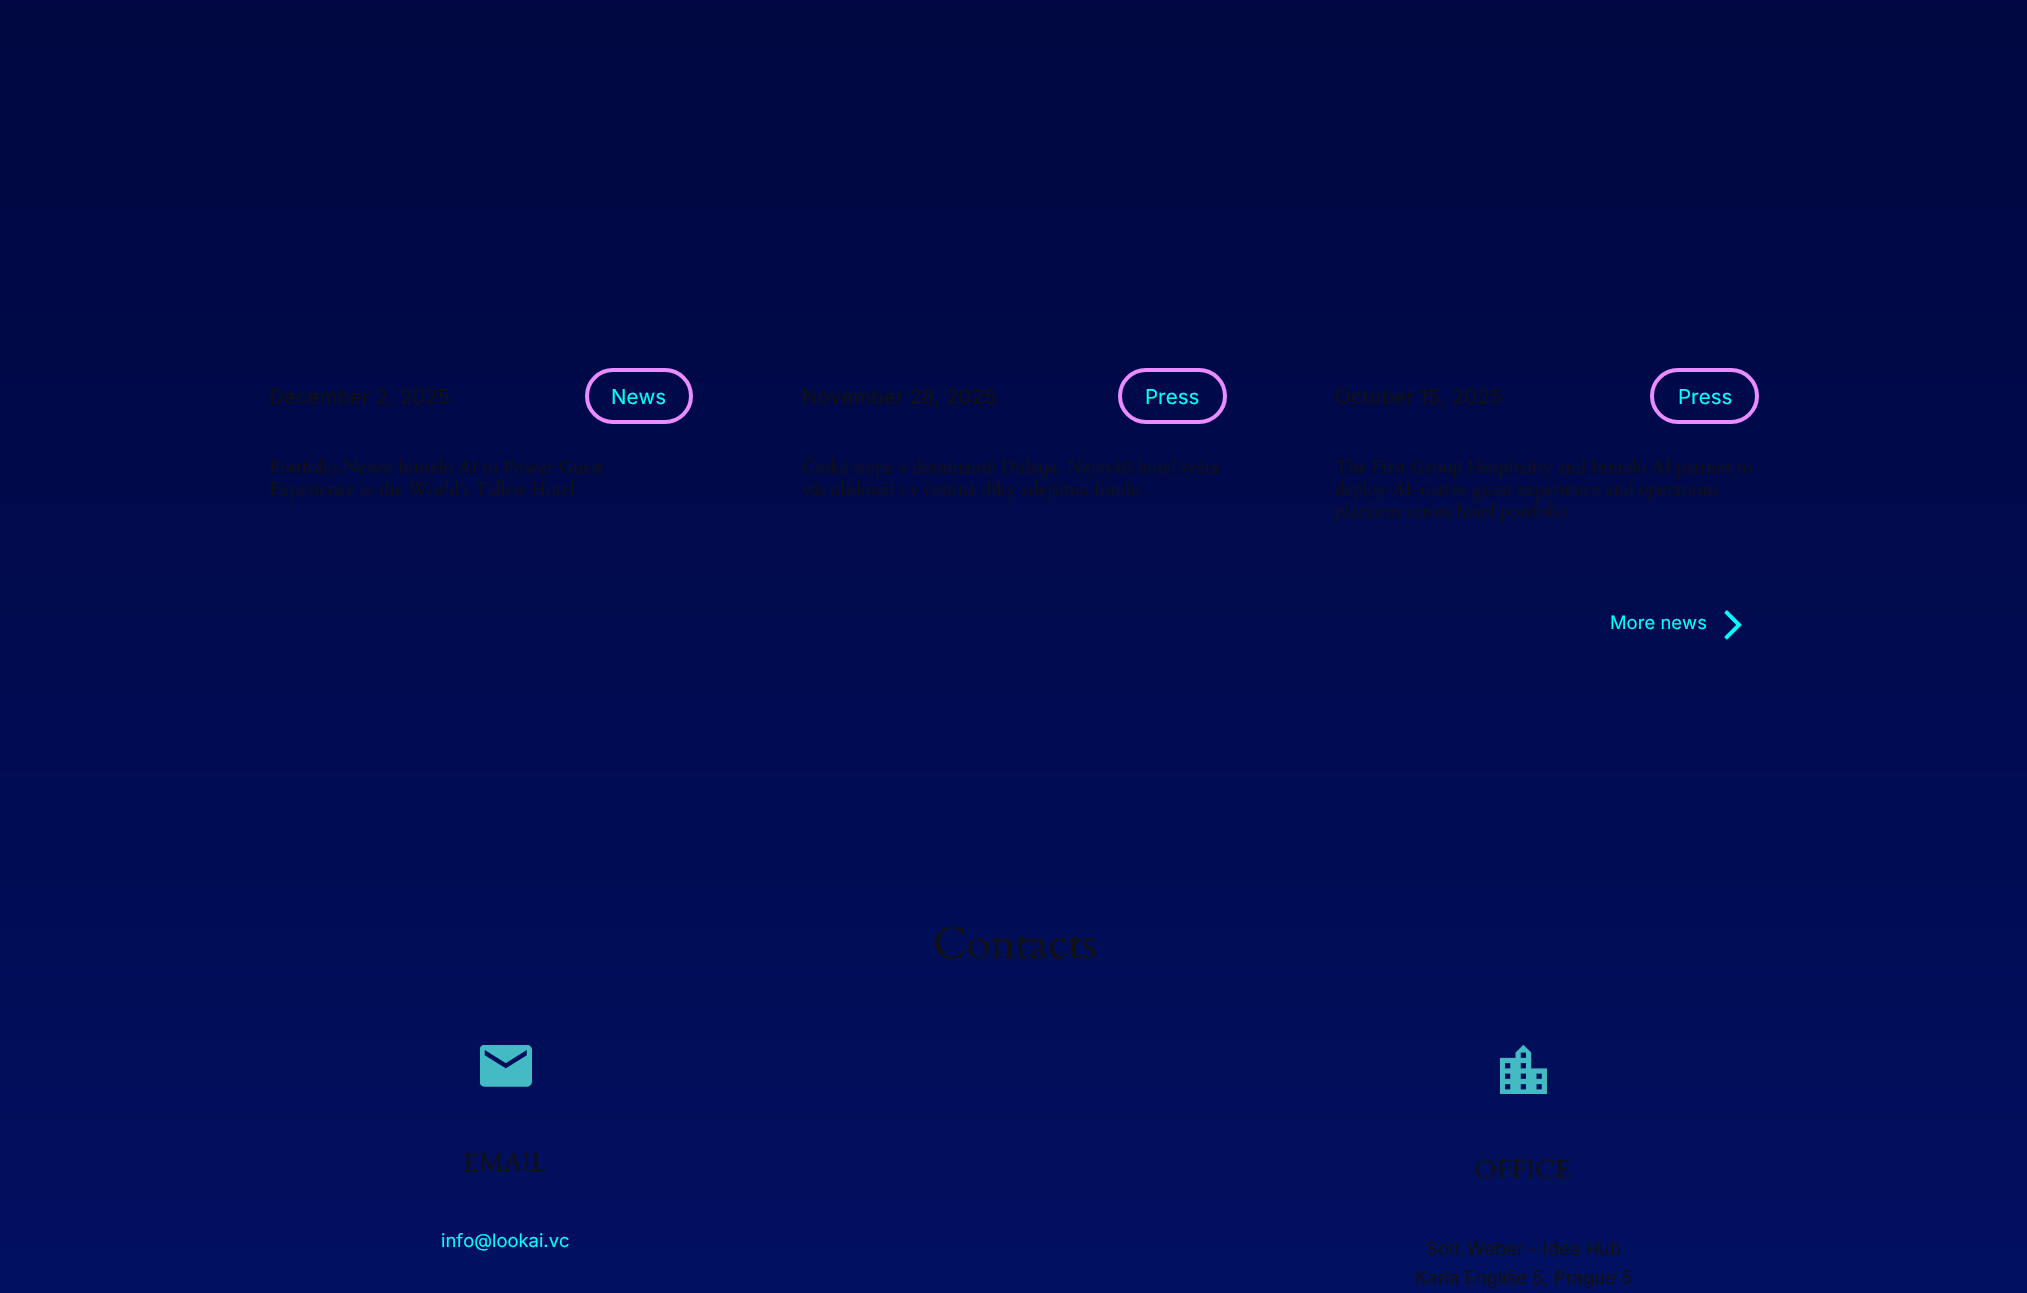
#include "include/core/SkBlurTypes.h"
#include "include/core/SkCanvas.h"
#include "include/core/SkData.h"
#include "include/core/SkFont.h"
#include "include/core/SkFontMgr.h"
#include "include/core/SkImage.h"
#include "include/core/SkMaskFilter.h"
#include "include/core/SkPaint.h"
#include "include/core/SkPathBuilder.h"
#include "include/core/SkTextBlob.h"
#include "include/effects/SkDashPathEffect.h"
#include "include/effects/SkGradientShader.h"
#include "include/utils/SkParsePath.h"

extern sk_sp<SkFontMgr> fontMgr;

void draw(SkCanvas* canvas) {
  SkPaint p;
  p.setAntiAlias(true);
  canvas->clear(SK_ColorWHITE);
  {
    const SkColor colors[] = {SkColorSetRGB(0, 3, 24), SkColorSetRGB(0, 5, 43), SkColorSetRGB(0, 7, 58), SkColorSetRGB(0, 21, 95), SkColorSetRGB(0, 33, 125), SkColorSetRGB(2, 53, 164), SkColorSetRGB(4, 62, 169), SkColorSetRGB(4, 50, 134), SkColorSetRGB(2, 34, 103), SkColorSetRGB(0, 5, 51), SkColorSetRGB(0, 8, 69), SkColorSetRGB(1, 20, 110), SkColorSetRGB(0, 17, 36)};
    const float stops[] = {0, 0, 0.23f, 0.27f, 0.3f, 0.41f, 0.49f, 0.59f, 0.67f, 0.77f, 0.84f, 0.92f, 1};
    const SkPoint ends[] = {{1014, -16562}, {1014, 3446}};
    p.setShader(SkGradientShader::MakeLinear(ends, colors, stops, 13, SkTileMode::kClamp));
    p.setAlpha(255);
  }
  canvas->drawRect(SkRect::MakeLTRB(0, 0, 2027, 1293), p);
  p.setStyle(SkPaint::kStroke_Style);
  p.setStrokeWidth(4);
  p.setShader(nullptr);
  p.setColor(SkColorSetRGB(234, 139, 255));
  canvas->drawRoundRect(SkRect::MakeLTRB(587, 370, 691, 422), 26, 26, p);
  canvas->drawRoundRect(SkRect::MakeLTRB(1120, 370, 1225, 422), 26, 26, p);
  canvas->drawRoundRect(SkRect::MakeLTRB(1652, 370, 1757, 422), 26, 26, p);
  canvas->drawImageRect(SkImages::DeferredFromEncodedData(SkData::MakeFromFileName("images/1.png")), SkRect::MakeLTRB(1724, 610, 1742, 640), SkSamplingOptions());
  canvas->drawImageRect(SkImages::DeferredFromEncodedData(SkData::MakeFromFileName("images/2.png")), SkRect::MakeLTRB(480, 1045, 532, 1087), SkSamplingOptions());
  canvas->drawImageRect(SkImages::DeferredFromEncodedData(SkData::MakeFromFileName("images/3.png")), SkRect::MakeLTRB(1500, 1045, 1547, 1094), SkSamplingOptions());
  SkFont font1(fontMgr->matchFamilyStyle("Inter", SkFontStyle::Normal()), 20.5f);
  font1.setSubpixel(true);
  p.setStyle(SkPaint::kFill_Style);
  p.setColor(SkColorSetRGB(17, 17, 17));
  canvas->drawString("December 2, 2025", 269, 404, font1, p);
  p.setColor(SkColorSetRGB(2, 253, 253));
  canvas->drawString("News", 611, 404, font1, p);
  SkFont font2(fontMgr->matchFamilyStyle("Cardo", SkFontStyle::Normal()), 18.4f);
  font2.setSubpixel(true);
  p.setColor(SkColorSetRGB(17, 17, 17));
  canvas->drawString("Portfolio News: Inntelo AI to Power Guest", 269, 473, font2, p);
  canvas->drawString("Experience at the World’s Tallest Hotel", 269, 495, font2, p);
  canvas->drawString("November 28, 2025", 802, 404, font1, p);
  p.setColor(SkColorSetRGB(2, 253, 253));
  canvas->drawString("Press", 1145, 404, font1, p);
  p.setColor(SkColorSetRGB(17, 17, 17));
  canvas->drawString("Česká stopa v dominantě Dubaje. Nejvyšší hotel světa", 802, 473, font2, p);
  canvas->drawString("vás obslouží i v češtině díky zdejšímu fondu", 802, 495, font2, p);
  canvas->drawString("October 15, 2025", 1335, 404, font1, p);
  p.setColor(SkColorSetRGB(2, 253, 253));
  canvas->drawString("Press", 1678, 404, font1, p);
  p.setColor(SkColorSetRGB(17, 17, 17));
  canvas->drawString("The First Group Hospitality and Inntelo AI partner to", 1335, 473, font2, p);
  canvas->drawString("deploy AI-native guest experience and operations", 1335, 495, font2, p);
  canvas->drawString("platform across hotel portfolio", 1335, 517, font2, p);
  SkFont font3(fontMgr->matchFamilyStyle("Inter", SkFontStyle::Normal()), 18.4f);
  font3.setSubpixel(true);
  p.setColor(SkColorSetRGB(2, 253, 253));
  canvas->drawString("More news", 1610, 629, font3, p);
  SkFont font4(fontMgr->matchFamilyStyle("Cardo", SkFontStyle::Normal()), 44);
  font4.setSubpixel(true);
  p.setColor(SkColorSetRGB(17, 17, 17));
  canvas->drawString("Contacts", 933, 958, font4, p);
  SkFont font5(fontMgr->matchFamilyStyle("Cardo", SkFontStyle::Normal()), 26);
  font5.setSubpixel(true);
  canvas->drawString("EMAIL", 463, 1171, font5, p);
  p.setColor(SkColorSetRGB(2, 253, 253));
  canvas->drawString("info@lookai.vc", 441, 1247, font3, p);
  p.setColor(SkColorSetRGB(17, 17, 17));
  canvas->drawString("OFFICE", 1474, 1178, font5, p);
  canvas->drawString("Sott.Weber - Idea Hub", 1426, 1255, font3, p);
  canvas->drawString("Karla Engliše 5, Prague 5", 1415, 1284, font3, p);
}
